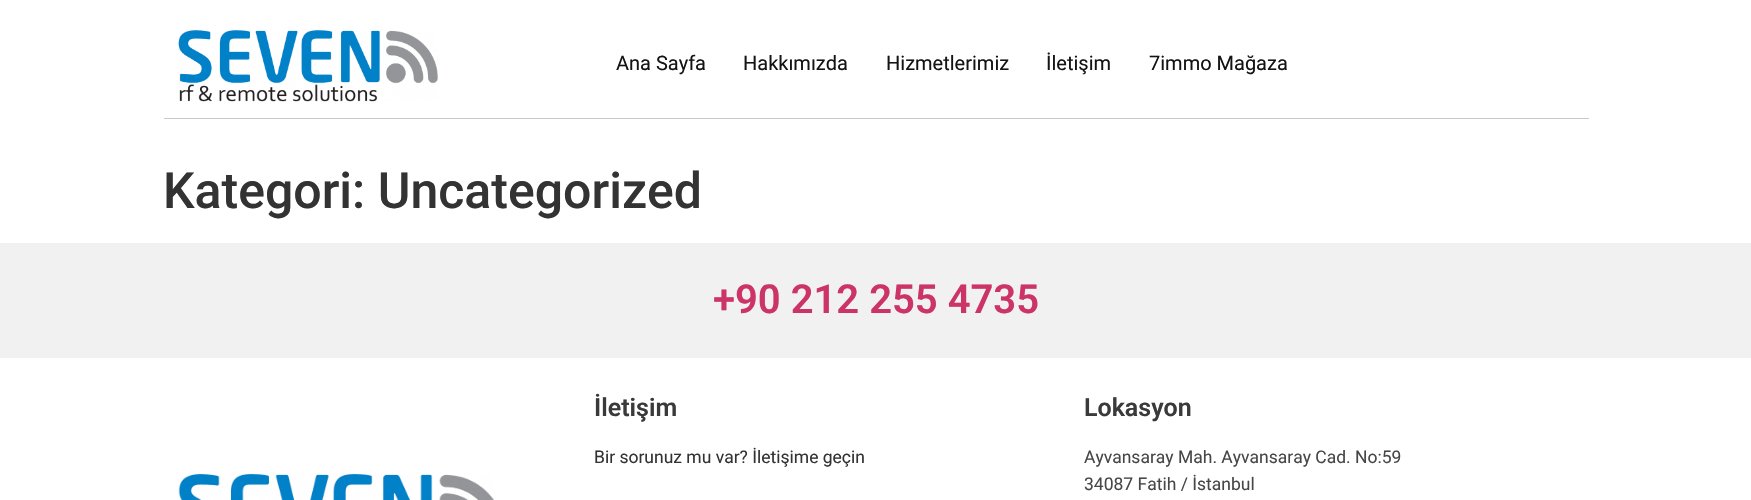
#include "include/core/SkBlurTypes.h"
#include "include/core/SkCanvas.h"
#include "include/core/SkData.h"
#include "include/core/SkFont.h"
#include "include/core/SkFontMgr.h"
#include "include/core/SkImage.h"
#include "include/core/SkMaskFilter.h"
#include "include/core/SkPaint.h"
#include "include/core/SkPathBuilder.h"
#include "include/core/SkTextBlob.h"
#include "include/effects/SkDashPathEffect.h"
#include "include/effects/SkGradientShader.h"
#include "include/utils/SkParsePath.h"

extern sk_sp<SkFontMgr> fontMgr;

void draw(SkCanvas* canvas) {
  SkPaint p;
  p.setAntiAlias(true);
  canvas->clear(SK_ColorWHITE);
  canvas->drawImageRect(SkImages::DeferredFromEncodedData(SkData::MakeFromFileName("images/1.png")), SkRect::MakeLTRB(178, 30, 438, 102), SkSamplingOptions());
  p.setColor(SkColorSetRGB(202, 202, 202));
  canvas->drawRect(SkRect::MakeLTRB(164, 118, 1589, 119), p);
  p.setColor(SkColorSetRGB(241, 241, 241));
  canvas->drawRect(SkRect::MakeLTRB(0, 243, 1751, 358), p);
  canvas->drawImageRect(SkImages::DeferredFromEncodedData(SkData::MakeFromFileName("images/2.png")), SkRect::MakeLTRB(178, 473, 494, 500), SkSamplingOptions());
  SkFont font1(fontMgr->matchFamilyStyle("Roboto", SkFontStyle::Normal()), 20);
  font1.setSubpixel(true);
  p.setColor(SkColorSetRGB(20, 20, 20));
  canvas->drawString("Ana Sayfa", 616, 70, font1, p);
  canvas->drawString("Hakkımızda", 743, 70, font1, p);
  canvas->drawString("Hizmetlerimiz", 886, 70, font1, p);
  canvas->drawString("İletişim", 1046, 70, font1, p);
  canvas->drawString("7immo Mağaza", 1149, 70, font1, p);
  SkFont font2(fontMgr->matchFamilyStyle("Roboto", SkFontStyle(500, SkFontStyle::kNormal_Width, SkFontStyle::kUpright_Slant)), 50);
  font2.setSubpixel(true);
  p.setColor(SkColorSetRGB(51, 51, 51));
  canvas->drawString("Kategori: Uncategorized", 163, 208, font2, p);
  SkFont font3(fontMgr->matchFamilyStyle("Roboto", SkFontStyle(600, SkFontStyle::kNormal_Width, SkFontStyle::kUpright_Slant)), 40);
  font3.setSubpixel(true);
  p.setColor(SkColorSetRGB(204, 51, 102));
  canvas->drawString("+90 212 255 4735", 713, 313, font3, p);
  SkFont font4(fontMgr->matchFamilyStyle("Roboto", SkFontStyle(600, SkFontStyle::kNormal_Width, SkFontStyle::kUpright_Slant)), 25);
  font4.setSubpixel(true);
  p.setColor(SkColorSetRGB(58, 58, 58));
  canvas->drawString("İletişim", 594, 416, font4, p);
  SkFont font5(fontMgr->matchFamilyStyle("Roboto", SkFontStyle::Normal()), 17.5f);
  font5.setSubpixel(true);
  p.setColor(SkColorSetRGB(51, 51, 51));
  canvas->drawString("Bir sorunuz mu var? İletişime geçin", 594, 463, font5, p);
  p.setColor(SkColorSetRGB(58, 58, 58));
  canvas->drawString("Lokasyon", 1084, 416, font4, p);
  p.setColor(SkColorSetRGB(71, 71, 71));
  canvas->drawString("Ayvansaray Mah. Ayvansaray Cad. No:59", 1084, 463, font5, p);
  canvas->drawString("34087 Fatih / İstanbul", 1084, 490, font5, p);
}
